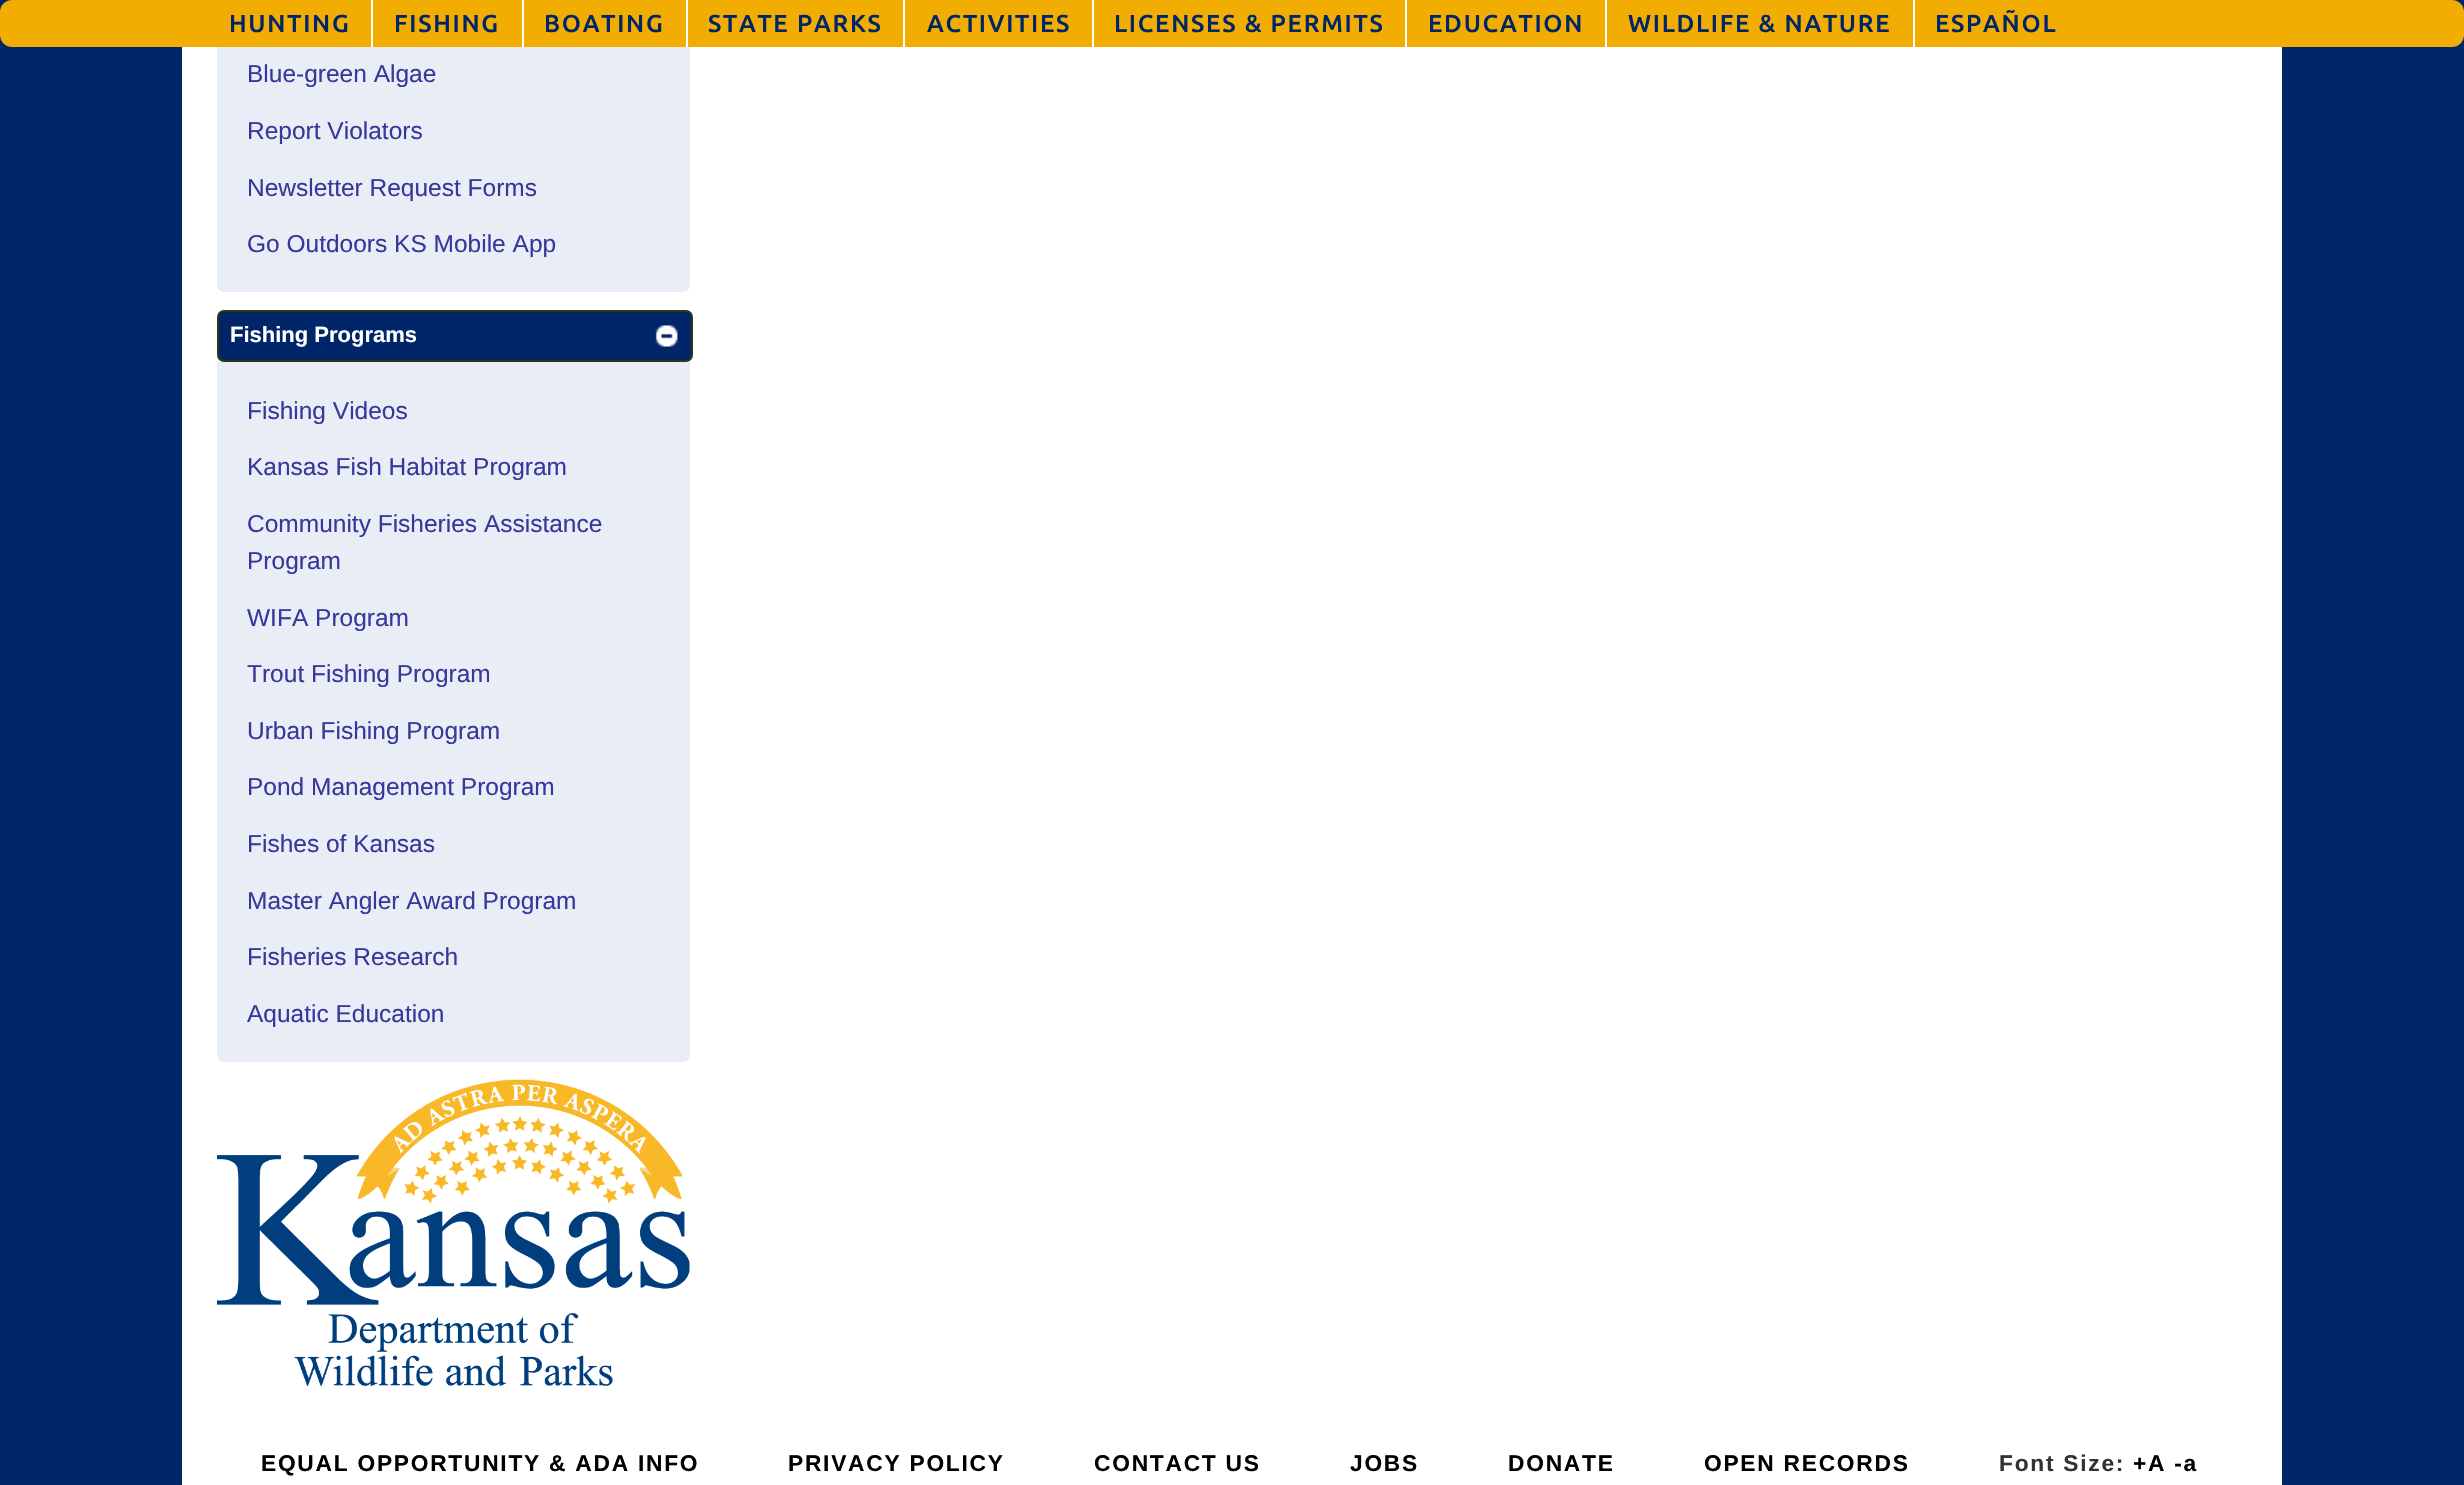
#include "include/core/SkBlurTypes.h"
#include "include/core/SkCanvas.h"
#include "include/core/SkData.h"
#include "include/core/SkFont.h"
#include "include/core/SkFontMgr.h"
#include "include/core/SkImage.h"
#include "include/core/SkMaskFilter.h"
#include "include/core/SkPaint.h"
#include "include/core/SkPathBuilder.h"
#include "include/core/SkTextBlob.h"
#include "include/effects/SkDashPathEffect.h"
#include "include/effects/SkGradientShader.h"
#include "include/utils/SkParsePath.h"

extern sk_sp<SkFontMgr> fontMgr;

void draw(SkCanvas* canvas) {
  SkPaint p;
  p.setAntiAlias(true);
  auto spacedText = [&](const char* s, float x, float y, const SkFont& font, const SkPaint& ink, float letter, float word) {
    std::vector<SkGlyphID> glyphs(font.countText(s, strlen(s), SkTextEncoding::kUTF8));
    std::vector<float> xs(glyphs.size());
    font.textToGlyphs(s, strlen(s), SkTextEncoding::kUTF8, glyphs);
    font.getXPos(glyphs, xs, x);
    float extra = 0;
    for (size_t i = 0; i < glyphs.size(); i++) {
      xs[i] += extra;
      extra += letter + word * (glyphs[i] == font.unicharToGlyph(' '));
    }
    canvas->drawTextBlob(SkTextBlob::MakeFromPosHGlyphs(glyphs, xs, y, font), 0, 0, ink);
  };
  canvas->clear(SkColorSetRGB(0, 37, 105));
  p.setColor(SK_ColorWHITE);
  canvas->drawRect(SkRect::MakeLTRB(182, 47, 2282, 1485), p);
  p.setColor(SkColorSetRGB(233, 237, 245));
  canvas->drawPath(SkPathBuilder().moveTo(217, -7).lineTo(690, -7).lineTo(690, 285).cubicTo(690, 289, 687, 292, 683, 292).lineTo(224, 292).cubicTo(220, 292, 217, 289, 217, 285).close().detach(), p);
  p.setColor(SkColorSetRGB(241, 173, 2));
  canvas->drawRoundRect(SkRect::MakeLTRB(0, 0, 2464, 47), 12, 12, p);
  p.setColor(SK_ColorWHITE);
  canvas->drawRect(SkRect::MakeLTRB(371, 0, 373, 47), p);
  canvas->drawRect(SkRect::MakeLTRB(522, 0, 524, 47), p);
  canvas->drawRect(SkRect::MakeLTRB(686, 0, 688, 47), p);
  canvas->drawRect(SkRect::MakeLTRB(903, 0, 905, 47), p);
  canvas->drawRect(SkRect::MakeLTRB(1092, 0, 1094, 47), p);
  canvas->drawRect(SkRect::MakeLTRB(1405, 0, 1407, 47), p);
  canvas->drawRect(SkRect::MakeLTRB(1605, 0, 1607, 47), p);
  canvas->drawRect(SkRect::MakeLTRB(1913, 0, 1915, 47), p);
  p.setColor(SkColorSetRGB(0, 37, 105));
  canvas->drawRoundRect(SkRect::MakeLTRB(218, 311, 692, 361), 6, 6, p);
  p.setStyle(SkPaint::kStroke_Style);
  p.setStrokeWidth(2);
  p.setColor(SkColorSetRGB(43, 56, 16));
  canvas->drawRoundRect(SkRect::MakeLTRB(218, 311, 692, 361), 6, 6, p);
  canvas->drawImageRect(SkImages::DeferredFromEncodedData(SkData::MakeFromFileName("images/1.png")), SkRect::MakeLTRB(655, 325, 678, 347), SkSamplingOptions());
  p.setStyle(SkPaint::kFill_Style);
  p.setColor(SkColorSetRGB(233, 237, 245));
  canvas->drawPath(SkPathBuilder().moveTo(217, 362).lineTo(690, 362).lineTo(690, 1055).cubicTo(690, 1059, 687, 1062, 683, 1062).lineTo(224, 1062).cubicTo(220, 1062, 217, 1059, 217, 1055).close().detach(), p);
  canvas->drawImageRect(SkImages::DeferredFromEncodedData(SkData::MakeFromFileName("images/2.png")), SkRect::MakeLTRB(217, 1079, 690, 1386), SkSamplingOptions());
  SkFont font1(fontMgr->matchFamilyStyle("Ubuntu", SkFontStyle(500, SkFontStyle::kNormal_Width, SkFontStyle::kUpright_Slant)), 24.5f);
  font1.setSubpixel(true);
  p.setColor(SkColorSetRGB(0, 37, 105));
  spacedText("HUNTING", 229, 32, font1, p, 1.75f, 0);
  spacedText("FISHING", 394, 32, font1, p, 1.75f, 0);
  spacedText("BOATING", 544, 32, font1, p, 1.75f, 0);
  spacedText("STATE PARKS", 708, 32, font1, p, 1.75f, 0);
  spacedText("ACTIVITIES", 927, 32, font1, p, 1.75f, 0);
  spacedText("LICENSES & PERMITS", 1114, 32, font1, p, 1.75f, 0);
  spacedText("EDUCATION", 1428, 32, font1, p, 1.75f, 0);
  spacedText("WILDLIFE & NATURE", 1628, 32, font1, p, 1.75f, 0);
  spacedText("ESPAÑOL", 1935, 32, font1, p, 1.75f, 0);
  SkFont font2(fontMgr->matchFamilyStyle("Liberation Sans", SkFontStyle::Normal()), 24.5f);
  font2.setSubpixel(true);
  p.setColor(SkColorSetRGB(56, 56, 156));
  canvas->drawString("Blue-green Algae", 247, 82, font2, p);
  canvas->drawString("Report Violators", 247, 139, font2, p);
  canvas->drawString("Newsletter Request Forms", 247, 196, font2, p);
  canvas->drawString("Go Outdoors KS Mobile App", 247, 252, font2, p);
  SkFont font3(fontMgr->matchFamilyStyle("Liberation Sans", SkFontStyle::Bold()), 22);
  font3.setSubpixel(true);
  p.setColor(SK_ColorWHITE);
  canvas->drawString("Fishing Programs", 230, 342, font3, p);
  p.setColor(SkColorSetRGB(56, 56, 156));
  canvas->drawString("Fishing Videos", 247, 419, font2, p);
  canvas->drawString("Kansas Fish Habitat Program", 247, 475, font2, p);
  canvas->drawString("Community Fisheries Assistance", 247, 532, font2, p);
  canvas->drawString("Program", 247, 569, font2, p);
  canvas->drawString("WIFA Program", 247, 626, font2, p);
  canvas->drawString("Trout Fishing Program", 247, 682, font2, p);
  canvas->drawString("Urban Fishing Program", 247, 739, font2, p);
  canvas->drawString("Pond Management Program", 247, 795, font2, p);
  canvas->drawString("Fishes of Kansas", 247, 852, font2, p);
  canvas->drawString("Master Angler Award Program", 247, 909, font2, p);
  canvas->drawString("Fisheries Research", 247, 965, font2, p);
  canvas->drawString("Aquatic Education", 247, 1022, font2, p);
  SkFont font4(fontMgr->matchFamilyStyle("Liberation Sans", SkFontStyle::Bold()), 22.75f);
  font4.setSubpixel(true);
  p.setColor(SK_ColorBLACK);
  spacedText("EQUAL OPPORTUNITY & ADA INFO", 261, 1471, font4, p, 1.75f, 0);
  spacedText("PRIVACY POLICY", 788, 1471, font4, p, 1.75f, 0);
  spacedText("CONTACT US", 1094, 1471, font4, p, 1.75f, 0);
  spacedText("JOBS", 1350, 1471, font4, p, 1.75f, 0);
  spacedText("DONATE", 1508, 1471, font4, p, 1.75f, 0);
  spacedText("OPEN RECORDS", 1704, 1471, font4, p, 1.75f, 0);
  p.setColor(SkColorSetRGB(51, 51, 51));
  spacedText("Font Size:", 1999, 1471, font4, p, 1.75f, 0);
  p.setColor(SK_ColorBLACK);
  spacedText("+A -a", 2133, 1471, font4, p, 1.75f, 0);
}
